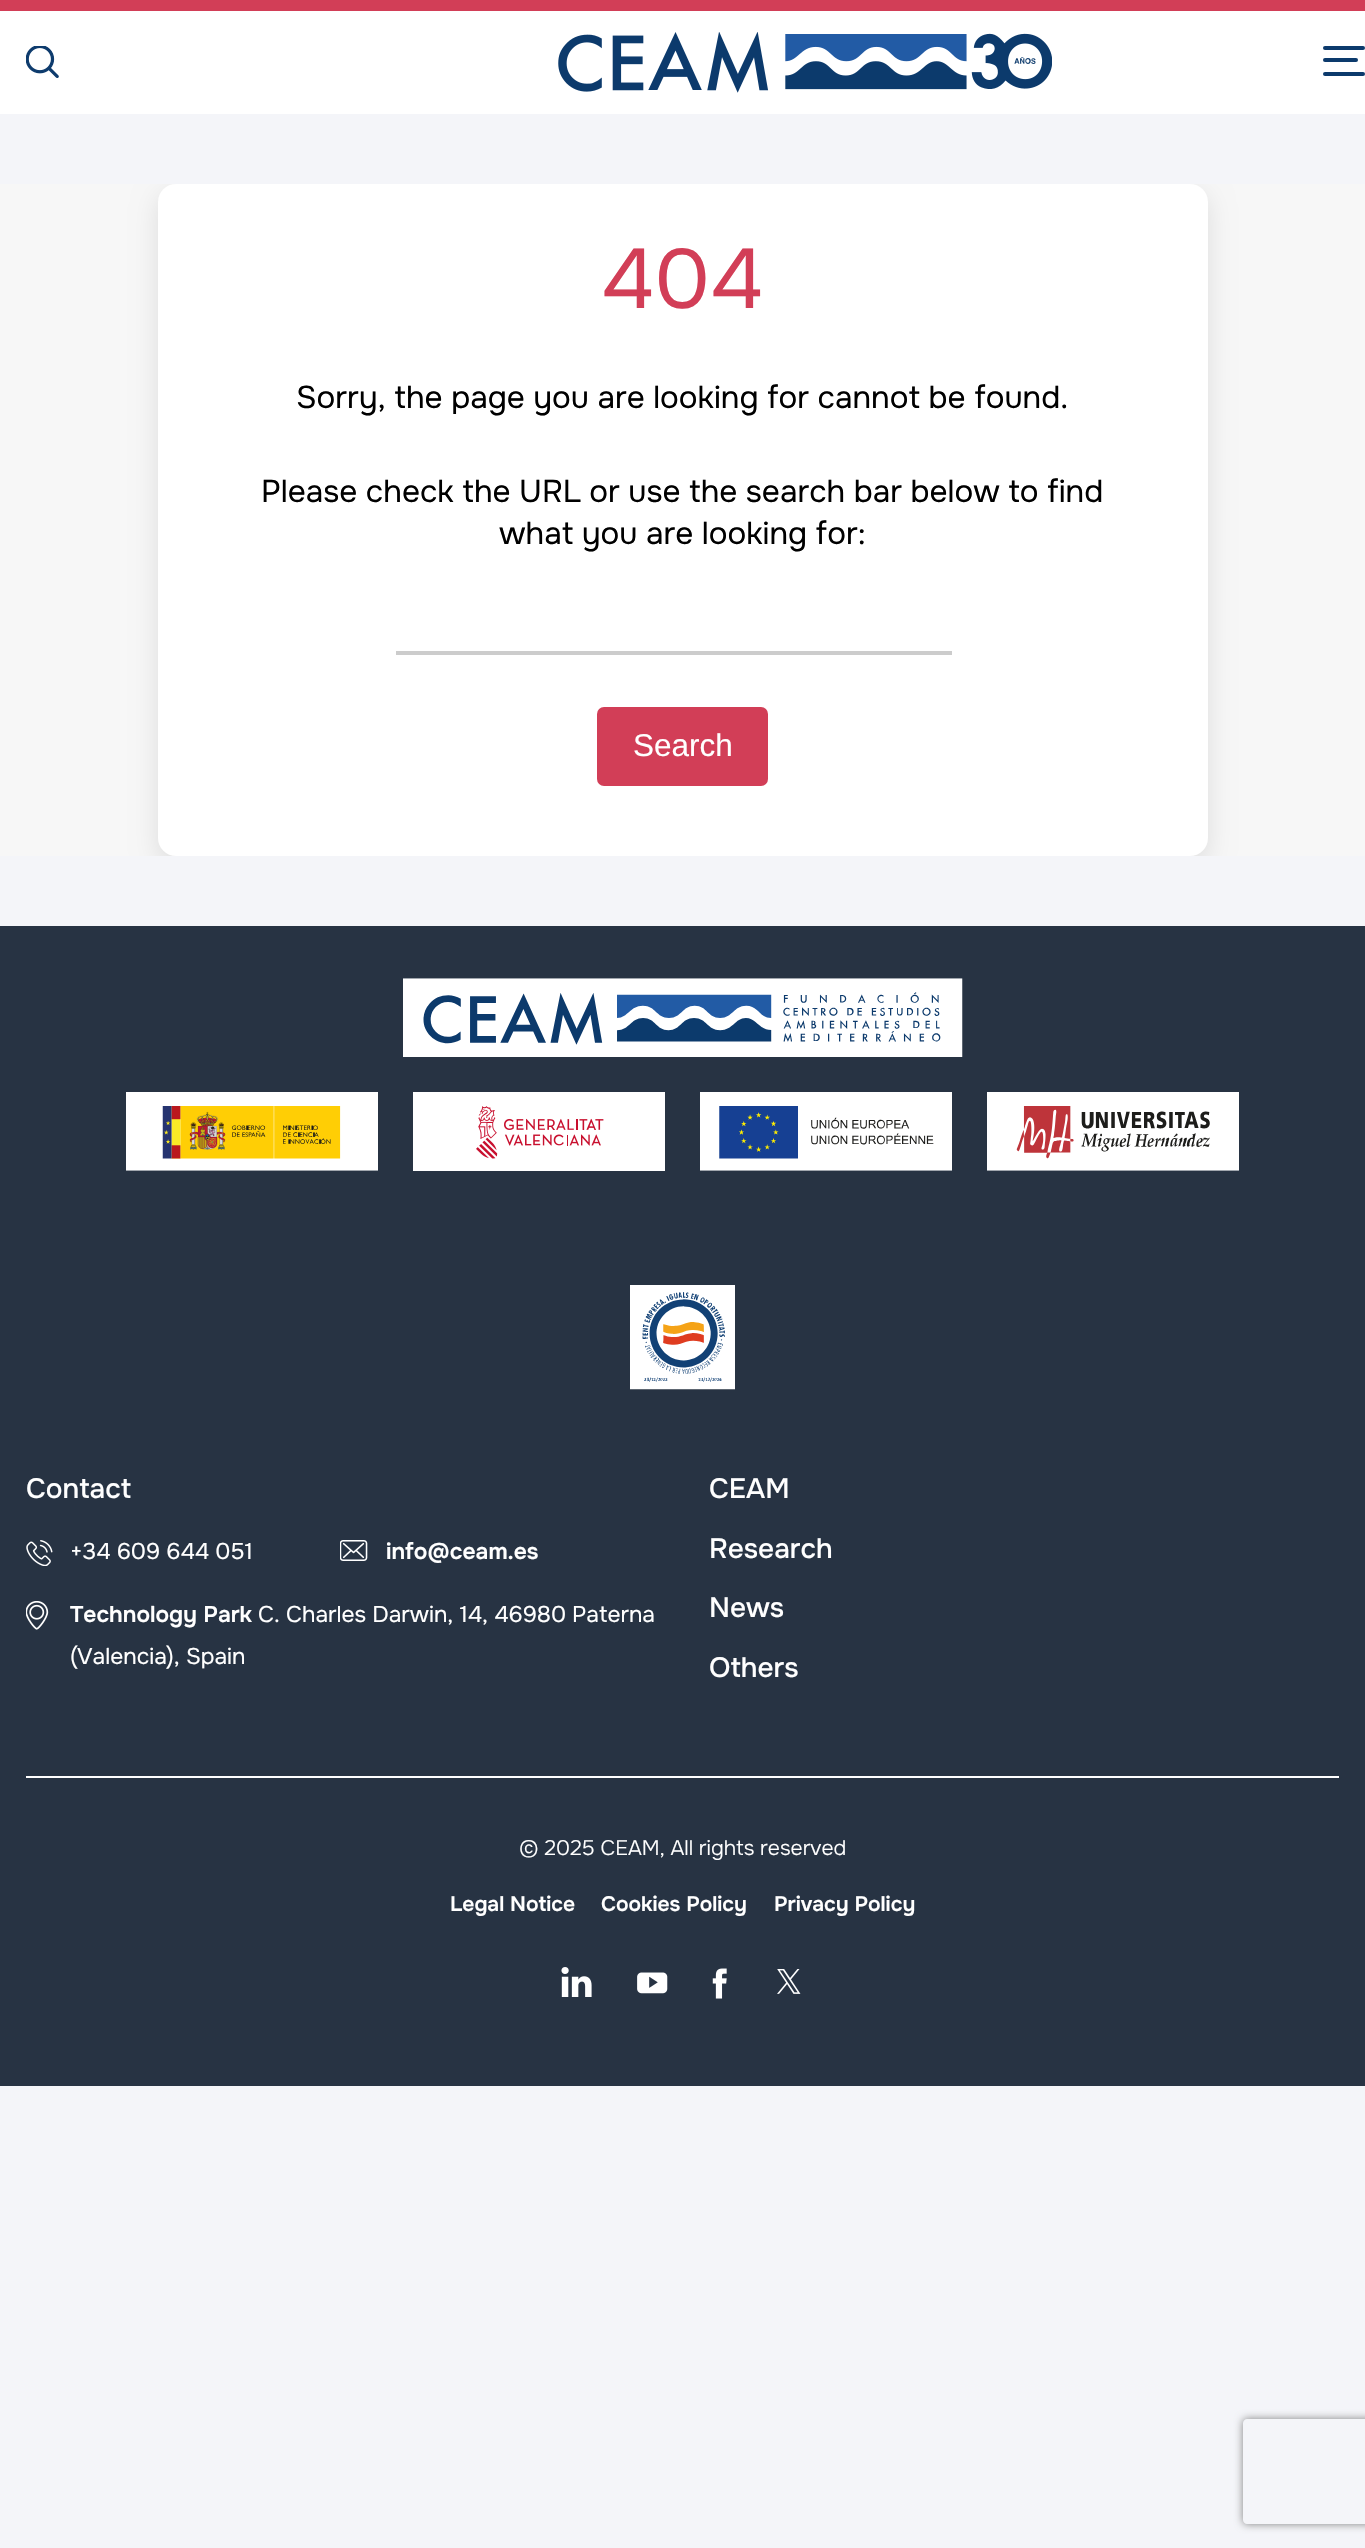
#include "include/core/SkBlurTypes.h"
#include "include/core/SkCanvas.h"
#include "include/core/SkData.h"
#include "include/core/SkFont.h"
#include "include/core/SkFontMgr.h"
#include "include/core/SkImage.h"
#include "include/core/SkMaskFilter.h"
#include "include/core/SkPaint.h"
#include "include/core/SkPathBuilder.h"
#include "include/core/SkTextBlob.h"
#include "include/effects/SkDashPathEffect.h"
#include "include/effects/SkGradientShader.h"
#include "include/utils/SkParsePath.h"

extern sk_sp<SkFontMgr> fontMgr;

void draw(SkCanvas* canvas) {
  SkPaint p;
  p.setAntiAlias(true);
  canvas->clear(SkColorSetRGB(244, 245, 249));
  p.setColor(SK_ColorWHITE);
  canvas->drawRect(SkRect::MakeLTRB(0, 11, 1365, 114), p);
  p.setColor(SkColorSetRGB(210, 62, 87));
  canvas->drawRect(SkRect::MakeLTRB(0, 0, 1365, 11), p);
  canvas->drawImageRect(SkImages::DeferredFromEncodedData(SkData::MakeFromFileName("images/1.png")), SkRect::MakeLTRB(26, 46, 59, 78), SkSamplingOptions());
  canvas->drawImageRect(SkImages::DeferredFromEncodedData(SkData::MakeFromFileName("images/2.png")), SkRect::MakeLTRB(558, 32, 1052, 93), SkSamplingOptions());
  p.setColor(SkColorSetRGB(12, 58, 108));
  canvas->drawRoundRect(SkRect::MakeLTRB(1323, 46, 1365, 50), 2, 2, p);
  canvas->drawRoundRect(SkRect::MakeLTRB(1323, 58, 1358, 62), 2, 2, p);
  canvas->drawRoundRect(SkRect::MakeLTRB(1323, 72, 1365, 76), 2, 2, p);
  p.setColor(SkColorSetRGB(247, 247, 247));
  canvas->drawRect(SkRect::MakeLTRB(0, 184, 1365, 856), p);
  canvas->save();
  canvas->clipRect(SkRect::MakeLTRB(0, 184, 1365, 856));
  p.setColor(SkColorSetARGB(26, 0, 0, 0));
  p.setMaskFilter(SkMaskFilter::MakeBlur(kNormal_SkBlurStyle, 13));
  canvas->drawRoundRect(SkRect::MakeLTRB(158, 193, 1208, 865), 18, 18, p);
  p.setMaskFilter(nullptr);
  canvas->restore();
  p.setColor(SK_ColorWHITE);
  canvas->drawRoundRect(SkRect::MakeLTRB(158, 184, 1208, 856), 18, 18, p);
  p.setColor(SkColorSetRGB(204, 204, 204));
  canvas->drawRect(SkRect::MakeLTRB(396, 651, 952, 655), p);
  p.setColor(SkColorSetRGB(210, 62, 87));
  canvas->drawRoundRect(SkRect::MakeLTRB(597, 707, 768, 786), 7, 7, p);
  p.setColor(SkColorSetRGB(39, 51, 67));
  canvas->drawRect(SkRect::MakeLTRB(0, 926, 1365, 2086), p);
  canvas->drawImageRect(SkImages::DeferredFromEncodedData(SkData::MakeFromFileName("images/3.png")), SkRect::MakeLTRB(403, 978, 963, 1057), SkSamplingOptions());
  canvas->drawImageRect(SkImages::DeferredFromEncodedData(SkData::MakeFromFileName("images/4.png")), SkRect::MakeLTRB(126, 1092, 378, 1171), SkSamplingOptions());
  canvas->drawImageRect(SkImages::DeferredFromEncodedData(SkData::MakeFromFileName("images/5.png")), SkRect::MakeLTRB(413, 1092, 665, 1171), SkSamplingOptions());
  canvas->drawImageRect(SkImages::DeferredFromEncodedData(SkData::MakeFromFileName("images/6.png")), SkRect::MakeLTRB(700, 1092, 952, 1171), SkSamplingOptions());
  canvas->drawImageRect(SkImages::DeferredFromEncodedData(SkData::MakeFromFileName("images/7.png")), SkRect::MakeLTRB(987, 1092, 1239, 1171), SkSamplingOptions());
  canvas->drawImageRect(SkImages::DeferredFromEncodedData(SkData::MakeFromFileName("images/8.png")), SkRect::MakeLTRB(630, 1285, 735, 1390), SkSamplingOptions());
  canvas->drawImageRect(SkImages::DeferredFromEncodedData(SkData::MakeFromFileName("images/9.png")), SkRect::MakeLTRB(26, 1540, 53, 1566), SkSamplingOptions());
  canvas->drawImageRect(SkImages::DeferredFromEncodedData(SkData::MakeFromFileName("images/10.png")), SkRect::MakeLTRB(340, 1540, 368, 1561), SkSamplingOptions());
  canvas->drawImageRect(SkImages::DeferredFromEncodedData(SkData::MakeFromFileName("images/11.png")), SkRect::MakeLTRB(26, 1601, 49, 1630), SkSamplingOptions());
  p.setColor(SK_ColorWHITE);
  canvas->drawRect(SkRect::MakeLTRB(26, 1776, 1339, 1778), p);
  canvas->drawImageRect(SkImages::DeferredFromEncodedData(SkData::MakeFromFileName("images/12.png")), SkRect::MakeLTRB(561, 1967, 592, 1997), SkSamplingOptions());
  canvas->drawImageRect(SkImages::DeferredFromEncodedData(SkData::MakeFromFileName("images/13.png")), SkRect::MakeLTRB(637, 1972, 668, 1994), SkSamplingOptions());
  canvas->drawImageRect(SkImages::DeferredFromEncodedData(SkData::MakeFromFileName("images/14.png")), SkRect::MakeLTRB(712, 1968, 727, 1999), SkSamplingOptions());
  canvas->drawImageRect(SkImages::DeferredFromEncodedData(SkData::MakeFromFileName("images/15.png")), SkRect::MakeLTRB(777, 1969, 801, 1994), SkSamplingOptions());
  canvas->save();
  canvas->clipPath(SkPathBuilder(SkPathFillType::kEvenOdd).moveTo(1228, 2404).lineTo(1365, 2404).lineTo(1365, 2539).lineTo(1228, 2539).close().moveTo(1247, 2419).lineTo(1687, 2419).cubicTo(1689, 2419, 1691, 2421, 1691, 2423).lineTo(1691, 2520).cubicTo(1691, 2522, 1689, 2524, 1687, 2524).lineTo(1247, 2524).cubicTo(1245, 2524, 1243, 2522, 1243, 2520).lineTo(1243, 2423).cubicTo(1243, 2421, 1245, 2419, 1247, 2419).close().detach(), true);
  p.setColor(SkColorSetRGB(128, 128, 128));
  p.setMaskFilter(SkMaskFilter::MakeBlur(kNormal_SkBlurStyle, 4.5f));
  canvas->drawRoundRect(SkRect::MakeLTRB(1243, 2419, 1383, 2524), 4, 4, p);
  p.setMaskFilter(nullptr);
  canvas->restore();
  SkFont font1(fontMgr->matchFamilyStyle("Onest", SkFontStyle::Normal()), 84);
  font1.setSubpixel(true);
  p.setColor(SkColorSetRGB(210, 62, 87));
  canvas->drawString("404", 601, 308, font1, p);
  SkFont font2(fontMgr->matchFamilyStyle("Onest", SkFontStyle::Normal()), 31.5f);
  font2.setSubpixel(true);
  p.setColor(SK_ColorBLACK);
  canvas->drawString("Sorry, the page you are looking for cannot be found.", 296, 408, font2, p);
  canvas->drawString("Please check the URL or use the search bar below to find", 261, 502, font2, p);
  canvas->drawString("what you are looking for:", 499, 544, font2, p);
  SkFont font3(fontMgr->matchFamilyStyle("Liberation Sans", SkFontStyle::Normal()), 31.5f);
  font3.setSubpixel(true);
  p.setColor(SK_ColorWHITE);
  canvas->drawString("Search", 633, 756, font3, p);
  SkFont font4(fontMgr->matchFamilyStyle("Onest", SkFontStyle(500, SkFontStyle::kNormal_Width, SkFontStyle::kUpright_Slant)), 28);
  font4.setSubpixel(true);
  canvas->drawString("Contact", 26, 1498, font4, p);
  SkFont font5(fontMgr->matchFamilyStyle("Onest", SkFontStyle::Normal()), 22.75f);
  font5.setSubpixel(true);
  canvas->drawString("+34 609 644 051", 70, 1559, font5, p);
  SkFont font6(fontMgr->matchFamilyStyle("Onest", SkFontStyle(600, SkFontStyle::kNormal_Width, SkFontStyle::kUpright_Slant)), 22.75f);
  font6.setSubpixel(true);
  canvas->drawString("info@ceam.es", 386, 1559, font6, p);
  canvas->drawString("Technology Park", 70, 1622, font6, p);
  canvas->drawString("C. Charles Darwin, 14, 46980", 258, 1622, font5, p);
  canvas->drawString("Paterna", 572, 1622, font5, p);
  canvas->drawString("(Valencia), Spain", 70, 1664, font5, p);
  canvas->drawString("CEAM", 709, 1498, font4, p);
  canvas->drawString("Research", 709, 1558, font4, p);
  canvas->drawString("News", 709, 1617, font4, p);
  canvas->drawString("Others", 709, 1677, font4, p);
  SkFont font7(fontMgr->matchFamilyStyle("Onest", SkFontStyle(300, SkFontStyle::kNormal_Width, SkFontStyle::kUpright_Slant)), 21);
  font7.setSubpixel(true);
  canvas->drawString("© 2025 CEAM, All rights reserved", 519, 1855, font7, p);
  SkFont font8(fontMgr->matchFamilyStyle("Onest", SkFontStyle(600, SkFontStyle::kNormal_Width, SkFontStyle::kUpright_Slant)), 21);
  font8.setSubpixel(true);
  canvas->drawString("Legal Notice", 450, 1911, font8, p);
  canvas->drawString("Cookies Policy", 601, 1911, font8, p);
  canvas->drawString("Privacy Policy", 774, 1911, font8, p);
}
